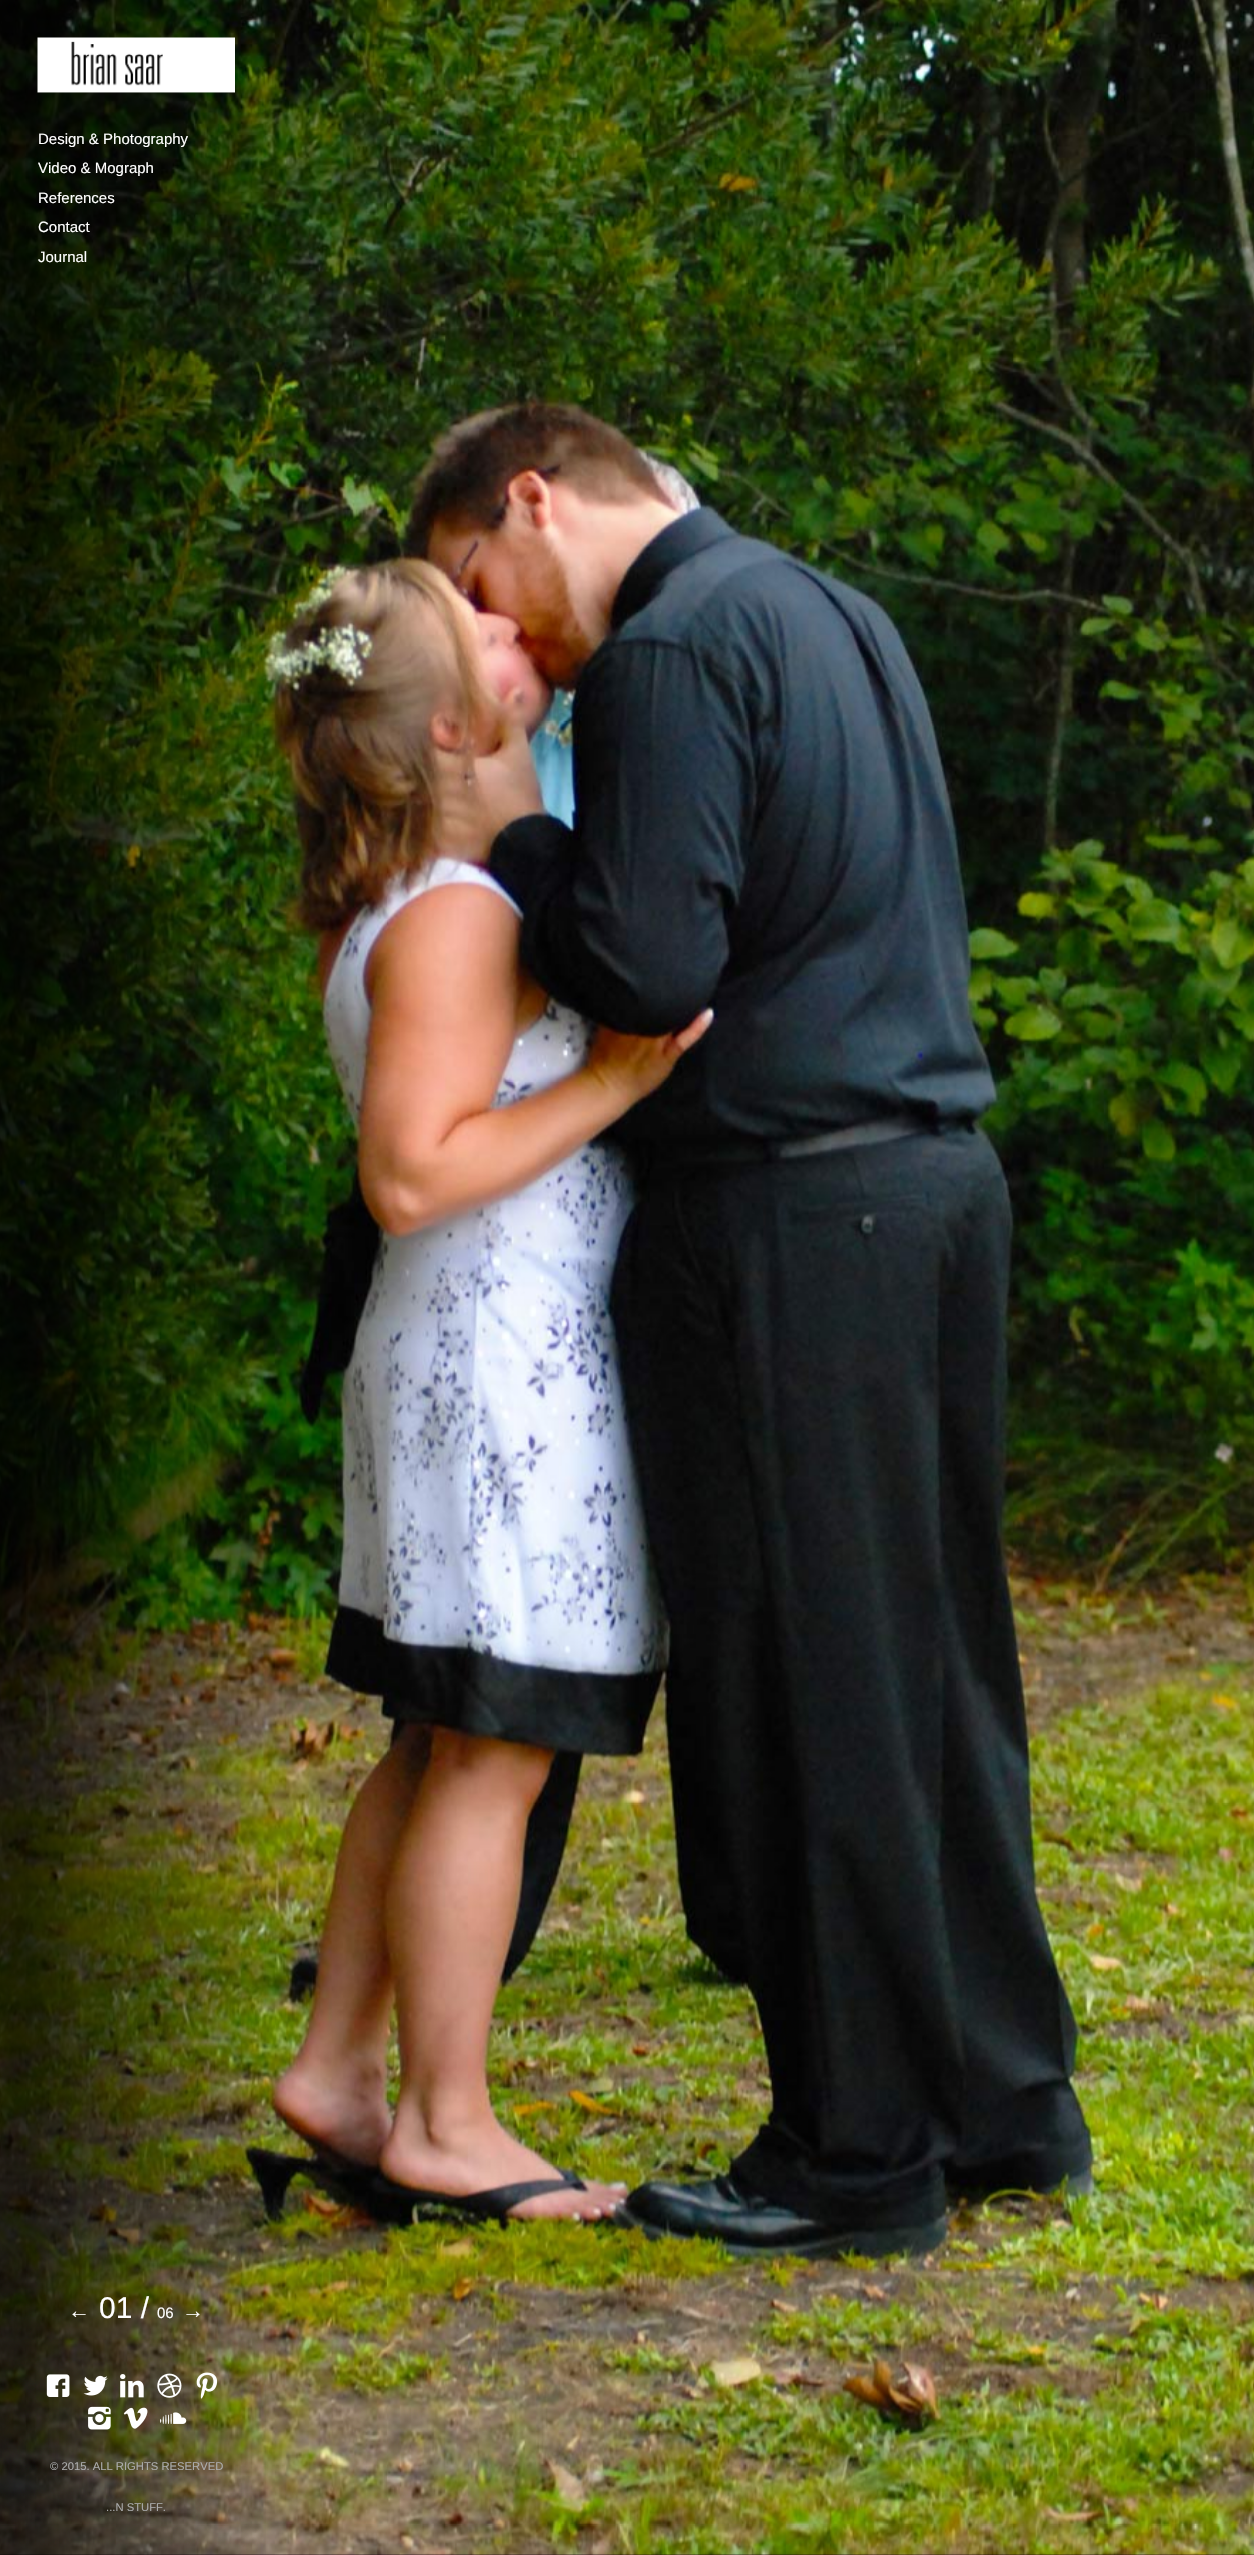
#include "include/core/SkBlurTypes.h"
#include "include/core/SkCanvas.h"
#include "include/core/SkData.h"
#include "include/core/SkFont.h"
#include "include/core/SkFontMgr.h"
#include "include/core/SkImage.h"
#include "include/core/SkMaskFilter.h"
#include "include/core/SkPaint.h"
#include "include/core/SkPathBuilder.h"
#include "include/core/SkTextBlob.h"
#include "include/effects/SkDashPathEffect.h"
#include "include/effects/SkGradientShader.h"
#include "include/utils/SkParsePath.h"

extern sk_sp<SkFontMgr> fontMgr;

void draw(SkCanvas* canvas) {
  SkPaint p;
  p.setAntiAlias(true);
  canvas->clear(SkColorSetRGB(26, 0, 20));
  canvas->drawImageRect(SkImages::DeferredFromEncodedData(SkData::MakeFromFileName("images/1.png")), SkRect::MakeLTRB(0, 0, 1254, 2555), SkSamplingOptions());
  {
    const SkColor colors[] = {SkColorSetARGB(191, 0, 0, 0), SkColorSetARGB(0, 0, 0, 0)};
    const float stops[] = {0.1f, 1};
    const SkPoint ends[] = {{0, 1278}, {273, 1278}};
    p.setShader(SkGradientShader::MakeLinear(ends, colors, stops, 2, SkTileMode::kClamp));
    p.setAlpha(255);
  }
  canvas->drawRect(SkRect::MakeLTRB(0, 0, 266, 2555), p);
  canvas->drawImageRect(SkImages::DeferredFromEncodedData(SkData::MakeFromFileName("images/2.png")), SkRect::MakeLTRB(37, 37, 235, 93), SkSamplingOptions());
  canvas->drawImageRect(SkImages::DeferredFromEncodedData(SkData::MakeFromFileName("images/3.png")), SkRect::MakeLTRB(46, 2374, 70, 2397), SkSamplingOptions());
  canvas->drawImageRect(SkImages::DeferredFromEncodedData(SkData::MakeFromFileName("images/4.png")), SkRect::MakeLTRB(83, 2375, 108, 2396), SkSamplingOptions());
  canvas->drawImageRect(SkImages::DeferredFromEncodedData(SkData::MakeFromFileName("images/5.png")), SkRect::MakeLTRB(120, 2374, 144, 2398), SkSamplingOptions());
  canvas->drawImageRect(SkImages::DeferredFromEncodedData(SkData::MakeFromFileName("images/6.png")), SkRect::MakeLTRB(157, 2373, 182, 2398), SkSamplingOptions());
  canvas->drawImageRect(SkImages::DeferredFromEncodedData(SkData::MakeFromFileName("images/7.png")), SkRect::MakeLTRB(196, 2372, 218, 2399), SkSamplingOptions());
  canvas->drawImageRect(SkImages::DeferredFromEncodedData(SkData::MakeFromFileName("images/8.png")), SkRect::MakeLTRB(88, 2406, 111, 2430), SkSamplingOptions());
  canvas->drawImageRect(SkImages::DeferredFromEncodedData(SkData::MakeFromFileName("images/9.png")), SkRect::MakeLTRB(123, 2407, 148, 2429), SkSamplingOptions());
  canvas->drawImageRect(SkImages::DeferredFromEncodedData(SkData::MakeFromFileName("images/10.png")), SkRect::MakeLTRB(160, 2412, 187, 2424), SkSamplingOptions());
  SkFont font1(fontMgr->matchFamilyStyle("Liberation Sans", SkFontStyle::Normal()), 15);
  font1.setSubpixel(true);
  p.setShader(nullptr);
  p.setColor(SK_ColorWHITE);
  canvas->drawString("Design & Photography", 38, 144, font1, p);
  canvas->drawString("Video & Mograph", 38, 173, font1, p);
  canvas->drawString("References", 38, 203, font1, p);
  canvas->drawString("Contact", 38, 232, font1, p);
  canvas->drawString("Journal", 38, 262, font1, p);
  SkFont font2(fontMgr->matchFamilyStyle("Liberation Sans", SkFontStyle::Normal()), 22);
  font2.setSubpixel(true);
  canvas->drawString("←", 68, 2318, font2, p);
  SkFont font3(fontMgr->matchFamilyStyle("Liberation Sans", SkFontStyle::Normal()), 30);
  font3.setSubpixel(true);
  canvas->drawString("01 /", 99, 2318, font3, p);
  canvas->drawString("06", 157, 2318, font1, p);
  canvas->drawString("→", 182, 2318, font2, p);
  SkFont font4(fontMgr->matchFamilyStyle("Liberation Sans", SkFontStyle::Normal()), 11.25f);
  font4.setSubpixel(true);
  p.setColor(SkColorSetRGB(171, 172, 173));
  canvas->drawString("© 2015. ALL RIGHTS RESERVED", 50, 2470, font4, p);
  canvas->drawString("...N STUFF.", 106, 2511, font4, p);
}
